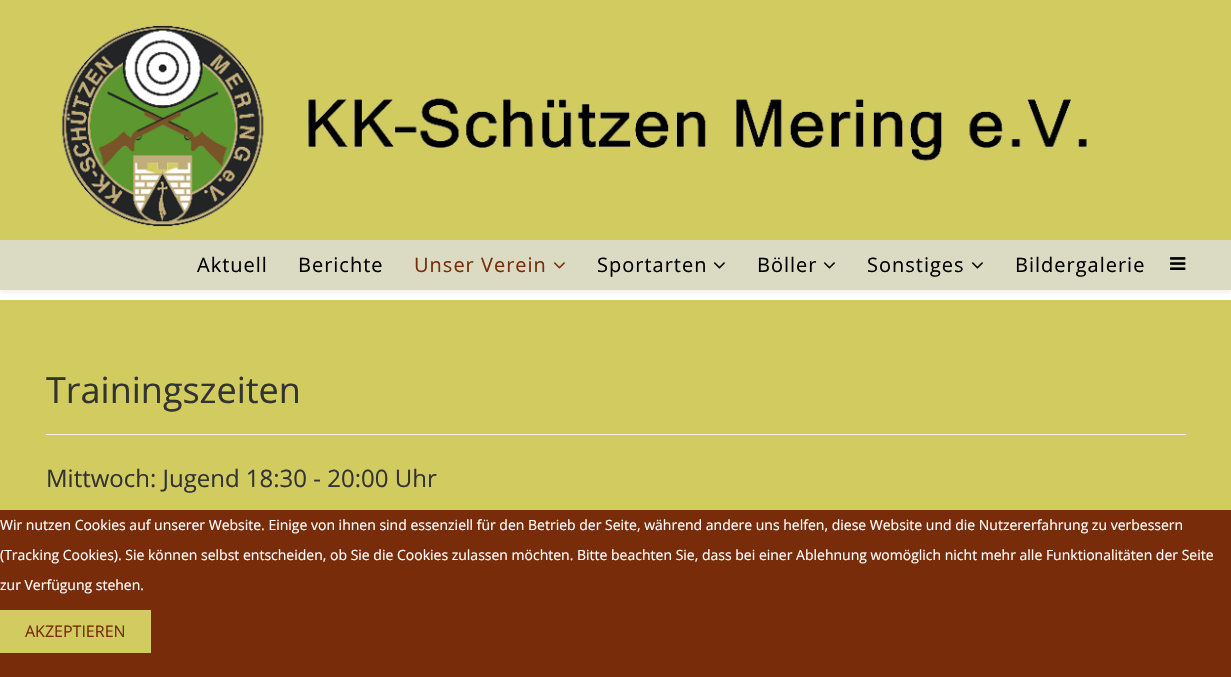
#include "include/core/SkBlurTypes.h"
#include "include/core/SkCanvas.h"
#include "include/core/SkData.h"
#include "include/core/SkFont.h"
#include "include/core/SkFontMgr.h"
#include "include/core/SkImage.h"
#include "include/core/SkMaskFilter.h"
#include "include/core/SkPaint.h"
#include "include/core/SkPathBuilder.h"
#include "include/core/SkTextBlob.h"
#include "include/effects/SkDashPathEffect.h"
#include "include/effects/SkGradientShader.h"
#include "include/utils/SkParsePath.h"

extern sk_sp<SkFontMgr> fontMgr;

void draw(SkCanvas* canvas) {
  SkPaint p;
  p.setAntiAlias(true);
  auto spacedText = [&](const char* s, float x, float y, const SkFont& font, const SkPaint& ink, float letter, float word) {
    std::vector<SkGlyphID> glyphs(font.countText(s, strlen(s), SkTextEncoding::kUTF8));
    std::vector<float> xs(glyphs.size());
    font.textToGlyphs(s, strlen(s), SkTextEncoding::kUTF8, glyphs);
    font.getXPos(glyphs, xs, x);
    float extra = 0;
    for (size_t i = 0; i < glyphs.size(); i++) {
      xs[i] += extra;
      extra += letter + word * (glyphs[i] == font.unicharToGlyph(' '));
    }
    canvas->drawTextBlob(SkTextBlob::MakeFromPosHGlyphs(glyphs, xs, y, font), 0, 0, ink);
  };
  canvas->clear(SK_ColorWHITE);
  p.setColor(SkColorSetRGB(209, 203, 96));
  canvas->drawRect(SkRect::MakeLTRB(0, 0, 1231, 240), p);
  canvas->drawImageRect(SkImages::DeferredFromEncodedData(SkData::MakeFromFileName("images/1.png")), SkRect::MakeLTRB(61, 25, 1088, 227), SkSamplingOptions());
  p.setColor(SkColorSetARGB(13, 0, 0, 0));
  p.setMaskFilter(SkMaskFilter::MakeBlur(kNormal_SkBlurStyle, 1.5f));
  canvas->drawRect(SkRect::MakeLTRB(0, 243, 1231, 293), p);
  p.setMaskFilter(nullptr);
  p.setColor(SkColorSetRGB(219, 218, 195));
  canvas->drawRect(SkRect::MakeLTRB(0, 240, 1231, 290), p);
  canvas->drawImageRect(SkImages::DeferredFromEncodedData(SkData::MakeFromFileName("images/2.png")), SkRect::MakeLTRB(553, 262, 565, 269), SkSamplingOptions());
  canvas->drawImageRect(SkImages::DeferredFromEncodedData(SkData::MakeFromFileName("images/3.png")), SkRect::MakeLTRB(713, 262, 725, 269), SkSamplingOptions());
  canvas->drawImageRect(SkImages::DeferredFromEncodedData(SkData::MakeFromFileName("images/3.png")), SkRect::MakeLTRB(823, 262, 835, 269), SkSamplingOptions());
  canvas->drawImageRect(SkImages::DeferredFromEncodedData(SkData::MakeFromFileName("images/3.png")), SkRect::MakeLTRB(971, 262, 983, 269), SkSamplingOptions());
  canvas->drawImageRect(SkImages::DeferredFromEncodedData(SkData::MakeFromFileName("images/4.png")), SkRect::MakeLTRB(1170, 257, 1186, 270), SkSamplingOptions());
  p.setColor(SkColorSetRGB(209, 203, 96));
  canvas->drawRect(SkRect::MakeLTRB(0, 300, 1231, 510), p);
  p.setColor(SkColorSetRGB(238, 238, 238));
  canvas->drawRect(SkRect::MakeLTRB(46, 434, 1186, 435), p);
  p.setColor(SkColorSetRGB(120, 44, 9));
  canvas->drawRect(SkRect::MakeLTRB(0, 510, 1231, 677), p);
  p.setColor(SkColorSetRGB(209, 203, 96));
  canvas->drawRect(SkRect::MakeLTRB(0, 610, 151, 653), p);
  SkFont font1(fontMgr->matchFamilyStyle("Open Sans", SkFontStyle::Normal()), 20);
  font1.setSubpixel(true);
  p.setColor(SK_ColorBLACK);
  spacedText("Aktuell", 197, 272, font1, p, 1, 0);
  spacedText("Berichte", 298, 272, font1, p, 1, 0);
  p.setColor(SkColorSetRGB(120, 44, 9));
  spacedText("Unser Verein", 414, 272, font1, p, 1, 0);
  p.setColor(SK_ColorBLACK);
  spacedText("Sportarten", 597, 272, font1, p, 1, 0);
  spacedText("Böller", 757, 272, font1, p, 1, 0);
  spacedText("Sonstiges", 867, 272, font1, p, 1, 0);
  spacedText("Bildergalerie", 1015, 272, font1, p, 1, 0);
  SkFont font2(fontMgr->matchFamilyStyle("Open Sans", SkFontStyle::Normal()), 36);
  font2.setSubpixel(true);
  p.setColor(SkColorSetRGB(51, 51, 51));
  canvas->drawString("Trainingszeiten", 46, 403, font2, p);
  SkFont font3(fontMgr->matchFamilyStyle("Open Sans", SkFontStyle::Normal()), 24);
  font3.setSubpixel(true);
  canvas->drawString("Mittwoch: Jugend 18:30 - 20:00 Uhr", 46, 487, font3, p);
  SkFont font4(fontMgr->matchFamilyStyle("Open Sans", SkFontStyle::Normal()), 14);
  font4.setSubpixel(true);
  p.setColor(SK_ColorWHITE);
  canvas->drawString("Wir nutzen Cookies auf unserer Website. Einige von ihnen sind essenziell für den Betrieb der Seite, während andere uns helfen, diese Website und die Nutzererfahrung zu verbessern", 0, 530, font4, p);
  canvas->drawString("(Tracking Cookies). Sie können selbst entscheiden, ob Sie die Cookies zulassen möchten. Bitte beachten Sie, dass bei einer Ablehnung womöglich nicht mehr alle Funktionalitäten der Seite", 0, 560, font4, p);
  canvas->drawString("zur Verfügung stehen.", 0, 590, font4, p);
  SkFont font5(fontMgr->matchFamilyStyle("Open Sans", SkFontStyle::Normal()), 16);
  font5.setSubpixel(true);
  p.setColor(SkColorSetRGB(120, 44, 9));
  canvas->drawString("AKZEPTIEREN", 25, 637, font5, p);
}
